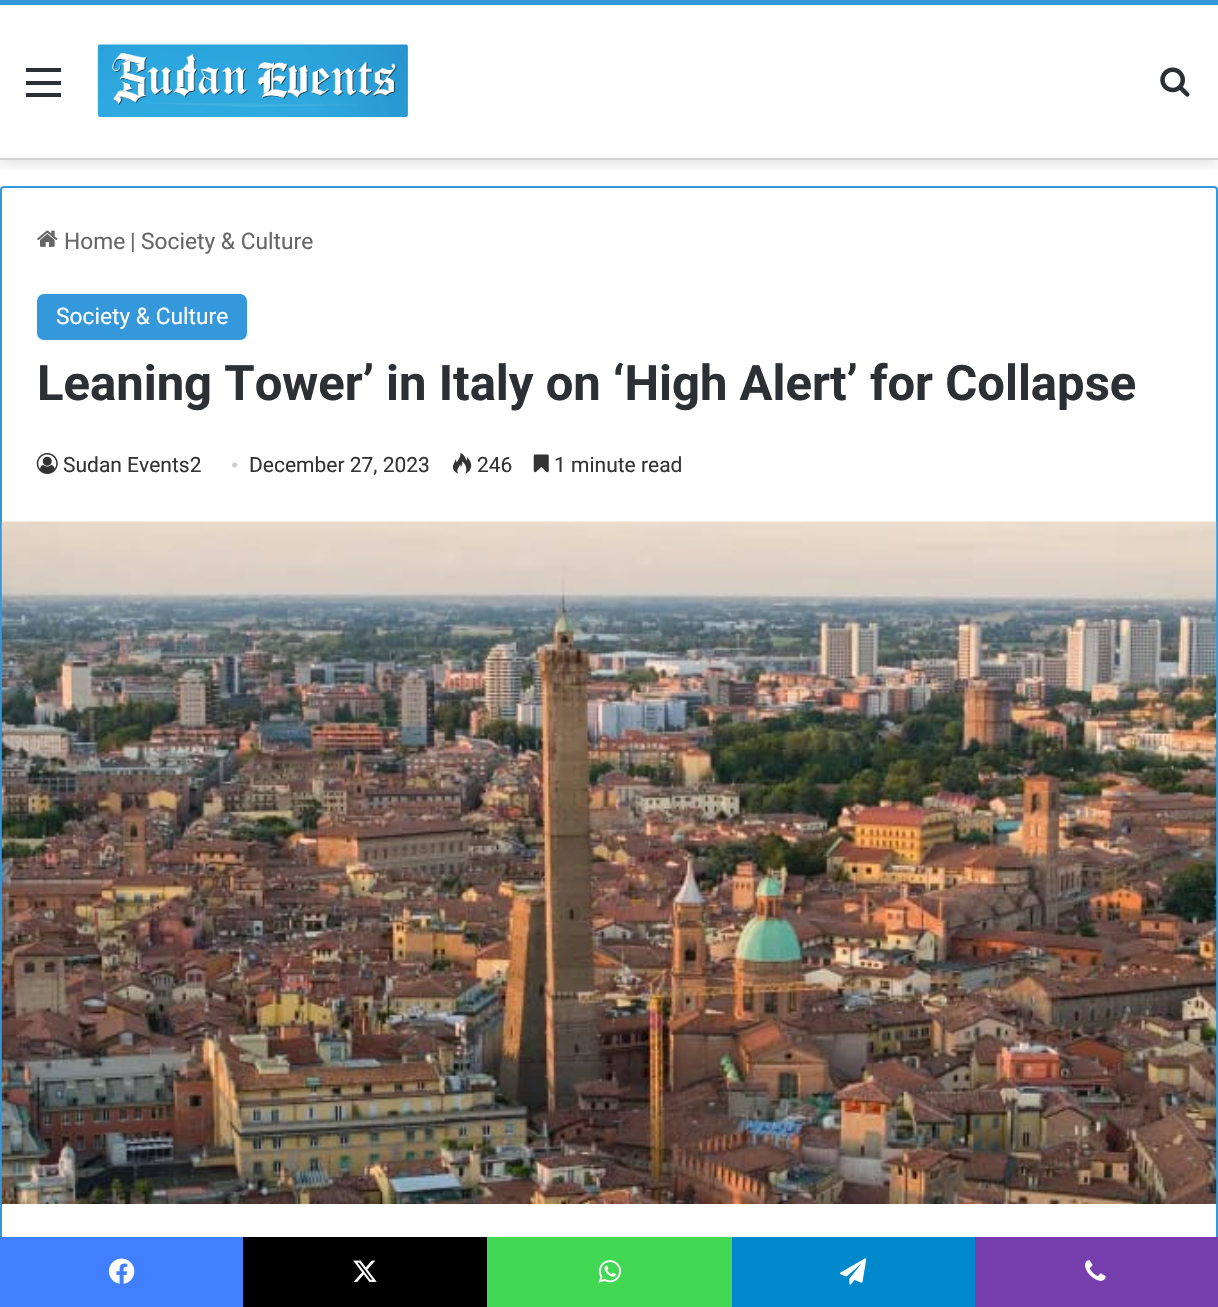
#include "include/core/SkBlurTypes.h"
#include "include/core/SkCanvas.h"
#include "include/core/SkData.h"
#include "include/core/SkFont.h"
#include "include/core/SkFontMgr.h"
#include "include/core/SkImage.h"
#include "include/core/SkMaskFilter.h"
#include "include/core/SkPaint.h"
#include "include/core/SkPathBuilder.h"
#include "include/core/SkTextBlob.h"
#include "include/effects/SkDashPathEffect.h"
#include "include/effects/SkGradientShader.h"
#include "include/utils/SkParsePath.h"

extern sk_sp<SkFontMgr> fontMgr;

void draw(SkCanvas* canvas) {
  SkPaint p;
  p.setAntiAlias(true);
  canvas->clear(SK_ColorWHITE);
  canvas->save();
  canvas->clipRect(SkRect::MakeLTRB(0, 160, 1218, 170));
  p.setColor(SkColorSetARGB(26, 0, 0, 0));
  p.setMaskFilter(SkMaskFilter::MakeBlur(kNormal_SkBlurStyle, 6));
  canvas->drawRect(SkRect::MakeLTRB(0, 5, 1218, 165), p);
  p.setMaskFilter(nullptr);
  canvas->restore();
  p.setColor(SkColorSetRGB(52, 152, 219));
  canvas->drawRect(SkRect::MakeLTRB(0, 0, 1218, 5), p);
  p.setColor(SkColorSetRGB(213, 213, 213));
  canvas->drawRect(SkRect::MakeLTRB(0, 158, 1218, 160), p);
  p.setColor(SkColorSetRGB(44, 47, 52));
  canvas->drawRect(SkRect::MakeLTRB(26, 81, 61, 85), p);
  canvas->drawRect(SkRect::MakeLTRB(26, 68, 61, 72), p);
  canvas->drawRect(SkRect::MakeLTRB(26, 93, 61, 97), p);
  canvas->drawImageRect(SkImages::DeferredFromEncodedData(SkData::MakeFromFileName("images/1.png")), SkRect::MakeLTRB(97, 44, 408, 117), SkSamplingOptions());
  canvas->drawImageRect(SkImages::DeferredFromEncodedData(SkData::MakeFromFileName("images/2.png")), SkRect::MakeLTRB(1160, 67, 1190, 97), SkSamplingOptions());
  p.setStyle(SkPaint::kStroke_Style);
  p.setStrokeWidth(2);
  p.setColor(SkColorSetRGB(52, 152, 219));
  canvas->drawRoundRect(SkRect::MakeLTRB(1, 187, 1217, 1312), 3, 3, p);
  canvas->drawImageRect(SkImages::DeferredFromEncodedData(SkData::MakeFromFileName("images/3.png")), SkRect::MakeLTRB(37, 230, 58, 247), SkSamplingOptions());
  p.setStyle(SkPaint::kFill_Style);
  canvas->drawRoundRect(SkRect::MakeLTRB(37, 294, 247, 340), 7, 7, p);
  canvas->drawImageRect(SkImages::DeferredFromEncodedData(SkData::MakeFromFileName("images/4.png")), SkRect::MakeLTRB(36, 453, 58, 474), SkSamplingOptions());
  canvas->drawImageRect(SkImages::DeferredFromEncodedData(SkData::MakeFromFileName("images/5.png")), SkRect::MakeLTRB(453, 452, 472, 474), SkSamplingOptions());
  canvas->drawImageRect(SkImages::DeferredFromEncodedData(SkData::MakeFromFileName("images/6.png")), SkRect::MakeLTRB(533, 454, 549, 473), SkSamplingOptions());
  canvas->drawImageRect(SkImages::DeferredFromEncodedData(SkData::MakeFromFileName("images/7.png")), SkRect::MakeLTRB(1, 521, 1217, 1204), SkSamplingOptions());
  p.setColor(SkColorSetRGB(64, 128, 255));
  canvas->drawRect(SkRect::MakeLTRB(0, 1237, 243, 1307), p);
  canvas->drawImageRect(SkImages::DeferredFromEncodedData(SkData::MakeFromFileName("images/8.png")), SkRect::MakeLTRB(108, 1258, 135, 1284), SkSamplingOptions());
  p.setColor(SK_ColorBLACK);
  canvas->drawRect(SkRect::MakeLTRB(243, 1237, 487, 1307), p);
  canvas->drawImageRect(SkImages::DeferredFromEncodedData(SkData::MakeFromFileName("images/9.png")), SkRect::MakeLTRB(353, 1260, 377, 1282), SkSamplingOptions());
  p.setColor(SkColorSetRGB(67, 216, 84));
  canvas->drawRect(SkRect::MakeLTRB(487, 1237, 732, 1307), p);
  canvas->drawImageRect(SkImages::DeferredFromEncodedData(SkData::MakeFromFileName("images/10.png")), SkRect::MakeLTRB(598, 1260, 621, 1283), SkSamplingOptions());
  p.setColor(SkColorSetRGB(0, 136, 204));
  canvas->drawRect(SkRect::MakeLTRB(732, 1237, 975, 1307), p);
  canvas->drawImageRect(SkImages::DeferredFromEncodedData(SkData::MakeFromFileName("images/11.png")), SkRect::MakeLTRB(840, 1258, 867, 1285), SkSamplingOptions());
  p.setColor(SkColorSetRGB(119, 62, 173));
  canvas->drawRect(SkRect::MakeLTRB(975, 1237, 1218, 1307), p);
  canvas->drawImageRect(SkImages::DeferredFromEncodedData(SkData::MakeFromFileName("images/12.png")), SkRect::MakeLTRB(1085, 1260, 1106, 1281), SkSamplingOptions());
  SkFont font1(fontMgr->matchFamilyStyle("Roboto", SkFontStyle::Normal()), 22.75f);
  font1.setSubpixel(true);
  p.setColor(SkColorSetRGB(102, 102, 102));
  canvas->drawString("Home", 64, 249, font1, p);
  canvas->drawString("|", 130, 249, font1, p);
  canvas->drawString("Society & Culture", 141, 249, font1, p);
  p.setColor(SK_ColorWHITE);
  canvas->drawString("Society & Culture", 56, 324, font1, p);
  SkFont font2(fontMgr->matchFamilyStyle("Roboto", SkFontStyle::Bold()), 49);
  font2.setSubpixel(true);
  p.setColor(SkColorSetRGB(44, 47, 52));
  canvas->drawString("Leaning Tower’ in Italy on ‘High Alert’ for Collapse", 37, 400, font2, p);
  SkFont font3(fontMgr->matchFamilyStyle("Roboto", SkFontStyle::Normal()), 21);
  font3.setSubpixel(true);
  p.setColor(SkColorSetRGB(51, 51, 51));
  canvas->drawString("Sudan Events2", 63, 472, font3, p);
  SkFont font4(fontMgr->matchFamilyStyle("Liberation Serif", SkFontStyle::Normal()), 21);
  font4.setSubpixel(true);
  p.setColor(SkColorSetRGB(204, 204, 204));
  canvas->drawString("•", 231, 472, font4, p);
  p.setColor(SkColorSetRGB(51, 51, 51));
  canvas->drawString("December 27, 2023", 249, 472, font3, p);
  canvas->drawString("246", 477, 472, font3, p);
  canvas->drawString("1 minute read", 554, 472, font3, p);
}
